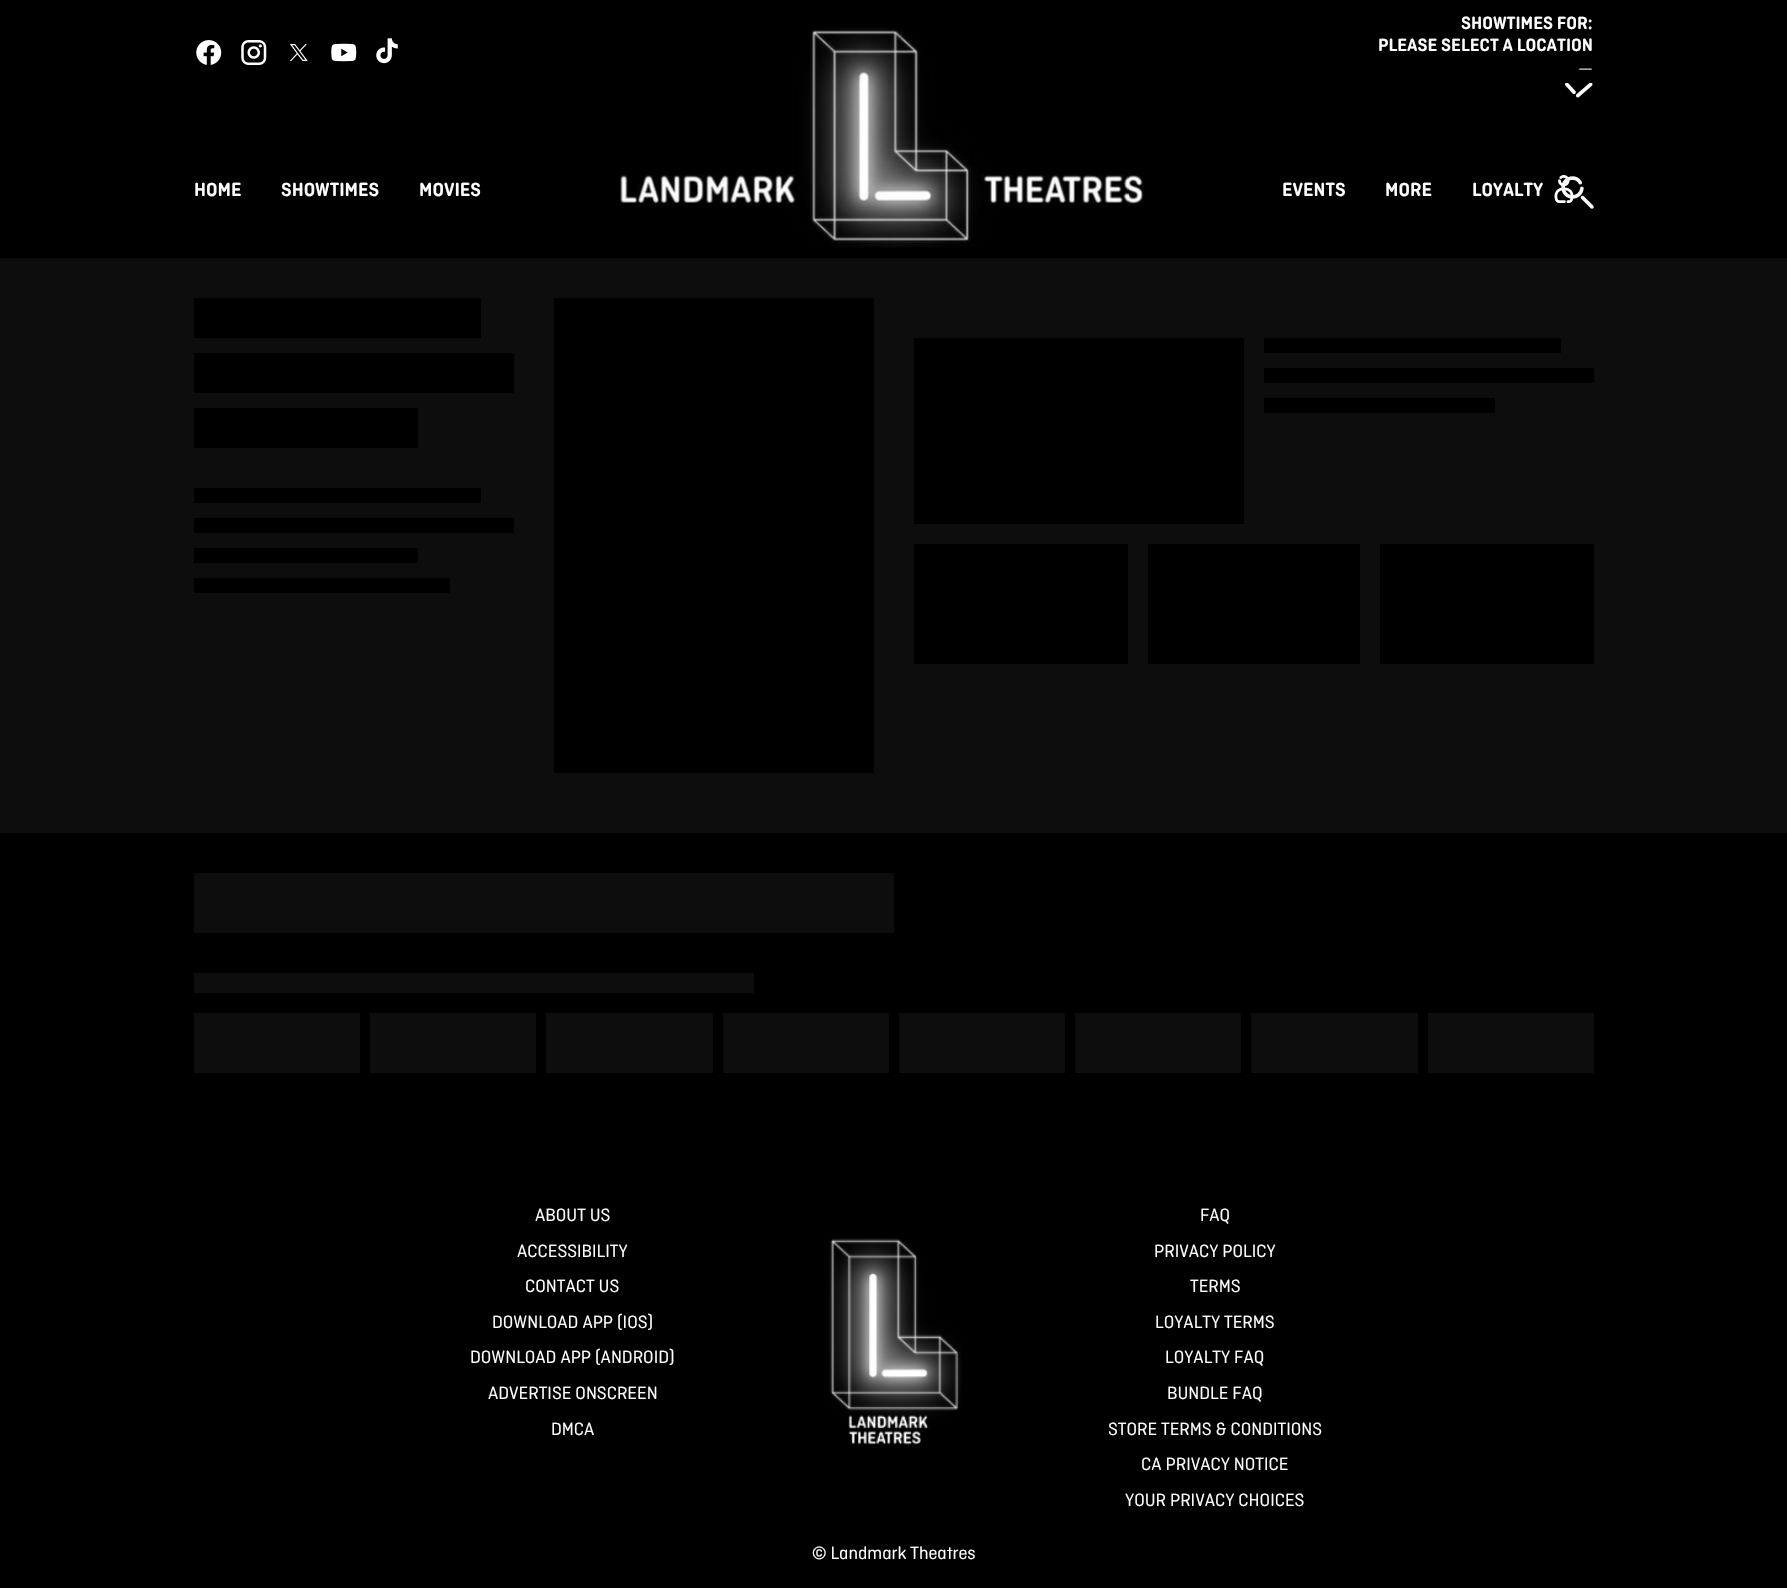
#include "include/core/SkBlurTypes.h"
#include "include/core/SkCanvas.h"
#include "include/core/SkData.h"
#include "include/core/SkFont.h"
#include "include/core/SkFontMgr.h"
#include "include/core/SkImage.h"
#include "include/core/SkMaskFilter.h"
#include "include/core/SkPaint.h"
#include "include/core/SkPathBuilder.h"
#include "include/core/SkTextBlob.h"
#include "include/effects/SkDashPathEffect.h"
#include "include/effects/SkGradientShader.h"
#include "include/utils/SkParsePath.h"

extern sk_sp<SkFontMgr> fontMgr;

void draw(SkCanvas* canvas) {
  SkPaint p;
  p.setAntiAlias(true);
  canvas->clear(SK_ColorBLACK);
  canvas->drawImageRect(SkImages::DeferredFromEncodedData(SkData::MakeFromFileName("images/1.png")), SkRect::MakeLTRB(196, 40, 222, 65), SkSamplingOptions());
  canvas->drawImageRect(SkImages::DeferredFromEncodedData(SkData::MakeFromFileName("images/2.png")), SkRect::MakeLTRB(241, 40, 267, 65), SkSamplingOptions());
  canvas->drawImageRect(SkImages::DeferredFromEncodedData(SkData::MakeFromFileName("images/3.png")), SkRect::MakeLTRB(289, 44, 308, 61), SkSamplingOptions());
  canvas->drawImageRect(SkImages::DeferredFromEncodedData(SkData::MakeFromFileName("images/4.png")), SkRect::MakeLTRB(331, 43, 357, 62), SkSamplingOptions());
  canvas->drawImageRect(SkImages::DeferredFromEncodedData(SkData::MakeFromFileName("images/5.png")), SkRect::MakeLTRB(376, 38, 398, 64), SkSamplingOptions());
  canvas->drawImageRect(SkImages::DeferredFromEncodedData(SkData::MakeFromFileName("images/6.png")), SkRect::MakeLTRB(1565, 83, 1593, 98), SkSamplingOptions());
  canvas->drawImageRect(SkImages::DeferredFromEncodedData(SkData::MakeFromFileName("images/7.png")), SkRect::MakeLTRB(619, 27, 1144, 248), SkSamplingOptions());
  canvas->drawImageRect(SkImages::DeferredFromEncodedData(SkData::MakeFromFileName("images/8.png")), SkRect::MakeLTRB(1554, 175, 1574, 203), SkSamplingOptions());
  canvas->drawImageRect(SkImages::DeferredFromEncodedData(SkData::MakeFromFileName("images/9.png")), SkRect::MakeLTRB(1561, 176, 1594, 209), SkSamplingOptions());
  p.setColor(SkColorSetRGB(13, 13, 13));
  canvas->drawRect(SkRect::MakeLTRB(0, 258, 1787, 833), p);
  p.setColor(SK_ColorBLACK);
  canvas->drawRect(SkRect::MakeLTRB(194, 298, 481, 338), p);
  canvas->drawRect(SkRect::MakeLTRB(194, 353, 514, 393), p);
  canvas->drawRect(SkRect::MakeLTRB(194, 408, 418, 448), p);
  canvas->drawRect(SkRect::MakeLTRB(194, 488, 481, 503), p);
  canvas->drawRect(SkRect::MakeLTRB(194, 518, 514, 533), p);
  canvas->drawRect(SkRect::MakeLTRB(194, 548, 418, 563), p);
  canvas->drawRect(SkRect::MakeLTRB(194, 578, 450, 593), p);
  canvas->drawRect(SkRect::MakeLTRB(554, 298, 874, 773), p);
  canvas->drawRect(SkRect::MakeLTRB(914, 338, 1244, 524), p);
  canvas->drawRect(SkRect::MakeLTRB(1264, 338, 1561, 353), p);
  canvas->drawRect(SkRect::MakeLTRB(1264, 368, 1594, 383), p);
  canvas->drawRect(SkRect::MakeLTRB(1264, 398, 1495, 413), p);
  canvas->drawRect(SkRect::MakeLTRB(914, 544, 1128, 664), p);
  canvas->drawRect(SkRect::MakeLTRB(1148, 544, 1360, 664), p);
  canvas->drawRect(SkRect::MakeLTRB(1380, 544, 1594, 664), p);
  p.setColor(SkColorSetRGB(13, 13, 13));
  canvas->drawRect(SkRect::MakeLTRB(194, 873, 894, 933), p);
  canvas->drawRect(SkRect::MakeLTRB(194, 973, 754, 993), p);
  canvas->drawRect(SkRect::MakeLTRB(194, 1013, 360, 1073), p);
  canvas->drawRect(SkRect::MakeLTRB(370, 1013, 536, 1073), p);
  canvas->drawRect(SkRect::MakeLTRB(546, 1013, 713, 1073), p);
  canvas->drawRect(SkRect::MakeLTRB(723, 1013, 889, 1073), p);
  canvas->drawRect(SkRect::MakeLTRB(899, 1013, 1065, 1073), p);
  canvas->drawRect(SkRect::MakeLTRB(1075, 1013, 1241, 1073), p);
  canvas->drawRect(SkRect::MakeLTRB(1251, 1013, 1418, 1073), p);
  canvas->drawRect(SkRect::MakeLTRB(1428, 1013, 1594, 1073), p);
  canvas->drawImageRect(SkImages::DeferredFromEncodedData(SkData::MakeFromFileName("images/10.png")), SkRect::MakeLTRB(829, 1238, 962, 1445), SkSamplingOptions());
  SkFont font1(fontMgr->matchFamilyStyle("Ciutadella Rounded", SkFontStyle(600, SkFontStyle::kNormal_Width, SkFontStyle::kUpright_Slant)), 18.75f);
  font1.setSubpixel(true);
  p.setColor(SK_ColorWHITE);
  canvas->drawString("SHOWTIMES FOR:", 1461, 29, font1, p);
  canvas->drawString("PLEASE SELECT A LOCATION", 1378, 51, font1, p);
  SkFont font2(fontMgr->matchFamilyStyle("Ciutadella Rounded", SkFontStyle(300, SkFontStyle::kNormal_Width, SkFontStyle::kUpright_Slant)), 18.75f);
  font2.setSubpixel(true);
  canvas->drawString("—", 1578, 74, font2, p);
  SkFont font3(fontMgr->matchFamilyStyle("Ciutadella Rounded", SkFontStyle(600, SkFontStyle::kNormal_Width, SkFontStyle::kUpright_Slant)), 20);
  font3.setSubpixel(true);
  canvas->drawString("HOME", 194, 196, font3, p);
  canvas->drawString("SHOWTIMES", 281, 196, font3, p);
  canvas->drawString("MOVIES", 419, 196, font3, p);
  canvas->drawString("EVENTS", 1282, 196, font3, p);
  canvas->drawString("MORE", 1385, 196, font3, p);
  canvas->drawString("LOYALTY", 1472, 196, font3, p);
  SkFont font4(fontMgr->matchFamilyStyle("Ciutadella Rounded", SkFontStyle::Normal()), 18.75f);
  font4.setSubpixel(true);
  canvas->drawString("ABOUT US", 535, 1221, font4, p);
  canvas->drawString("ACCESSIBILITY", 517, 1257, font4, p);
  canvas->drawString("CONTACT US", 525, 1292, font4, p);
  canvas->drawString("DOWNLOAD APP (IOS)", 492, 1328, font4, p);
  canvas->drawString("DOWNLOAD APP (ANDROID)", 470, 1363, font4, p);
  canvas->drawString("ADVERTISE ONSCREEN", 488, 1399, font4, p);
  canvas->drawString("DMCA", 551, 1435, font4, p);
  canvas->drawString("FAQ", 1200, 1221, font4, p);
  canvas->drawString("PRIVACY POLICY", 1154, 1257, font4, p);
  canvas->drawString("TERMS", 1190, 1292, font4, p);
  canvas->drawString("LOYALTY TERMS", 1155, 1328, font4, p);
  canvas->drawString("LOYALTY FAQ", 1165, 1363, font4, p);
  canvas->drawString("BUNDLE FAQ", 1167, 1399, font4, p);
  canvas->drawString("STORE TERMS & CONDITIONS", 1108, 1435, font4, p);
  canvas->drawString("CA PRIVACY NOTICE", 1141, 1470, font4, p);
  canvas->drawString("YOUR PRIVACY CHOICES", 1125, 1506, font4, p);
  canvas->drawString("© Landmark Theatres", 812, 1559, font4, p);
}
